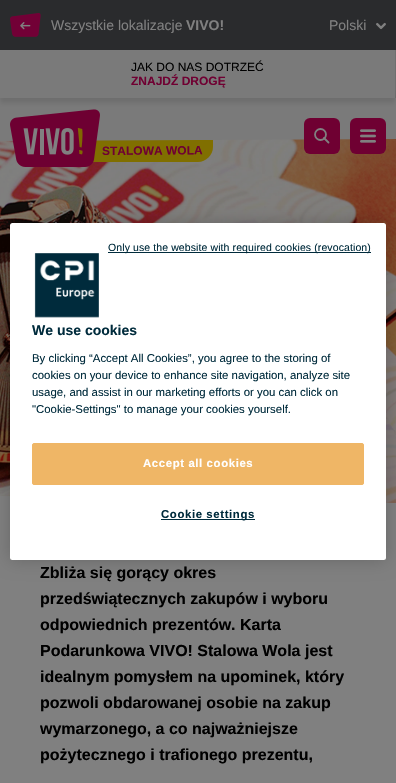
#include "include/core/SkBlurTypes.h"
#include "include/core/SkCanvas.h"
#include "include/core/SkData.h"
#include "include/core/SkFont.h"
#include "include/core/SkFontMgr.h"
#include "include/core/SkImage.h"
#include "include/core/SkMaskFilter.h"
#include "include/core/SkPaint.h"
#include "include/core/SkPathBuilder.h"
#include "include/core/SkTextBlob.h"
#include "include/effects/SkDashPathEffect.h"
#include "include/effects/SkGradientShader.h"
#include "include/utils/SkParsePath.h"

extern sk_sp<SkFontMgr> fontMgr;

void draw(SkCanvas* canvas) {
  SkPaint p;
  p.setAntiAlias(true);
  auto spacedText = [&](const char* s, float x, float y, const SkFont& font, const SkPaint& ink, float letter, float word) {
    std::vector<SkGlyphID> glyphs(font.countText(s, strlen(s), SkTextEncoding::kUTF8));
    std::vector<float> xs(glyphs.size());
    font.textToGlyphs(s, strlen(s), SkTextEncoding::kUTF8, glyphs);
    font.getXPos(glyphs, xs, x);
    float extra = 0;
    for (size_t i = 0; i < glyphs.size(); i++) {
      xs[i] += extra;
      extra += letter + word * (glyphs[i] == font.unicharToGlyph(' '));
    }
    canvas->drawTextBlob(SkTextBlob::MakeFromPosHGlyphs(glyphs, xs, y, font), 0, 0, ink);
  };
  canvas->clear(SkColorSetRGB(128, 128, 128));
  p.setColor(SkColorSetRGB(42, 43, 45));
  canvas->drawRect(SkRect::MakeLTRB(0, 0, 396, 50), p);
  canvas->drawImageRect(SkImages::DeferredFromEncodedData(SkData::MakeFromFileName("images/1.png")), SkRect::MakeLTRB(10, 13, 41, 37), SkSamplingOptions());
  canvas->drawImageRect(SkImages::DeferredFromEncodedData(SkData::MakeFromFileName("images/2.png")), SkRect::MakeLTRB(376, 22, 386, 30), SkSamplingOptions());
  p.setColor(SkColorSetRGB(122, 122, 122));
  canvas->drawRect(SkRect::MakeLTRB(0, 50, 395, 98), p);
  p.setColor(SkColorSetRGB(111, 111, 111));
  canvas->drawRect(SkRect::MakeLTRB(395, 50, 396, 98), p);
  p.setColor(SkColorSetRGB(122, 122, 122));
  canvas->drawRect(SkRect::MakeLTRB(0, 98, 396, 121), p);
  canvas->drawImageRect(SkImages::DeferredFromEncodedData(SkData::MakeFromFileName("images/5.png")), SkRect::MakeLTRB(0, 139, 396, 503), SkSamplingOptions());
  p.setColor(SkColorSetRGB(128, 111, 0));
  canvas->drawPath(SkPathBuilder().moveTo(97, 140).lineTo(213, 140).lineTo(213, 147).cubicTo(213, 155, 206, 162, 198, 162).lineTo(82, 162).lineTo(82, 155).cubicTo(82, 147, 89, 140, 97, 140).close().detach(), p);
  p.setColor(SkColorSetRGB(122, 122, 122));
  canvas->drawPath(SkPathBuilder().moveTo(0, 121).lineTo(396, 119).lineTo(396, 139).lineTo(0, 141).close().detach(), p);
  canvas->drawImageRect(SkImages::DeferredFromEncodedData(SkData::MakeFromFileName("images/3.png")), SkRect::MakeLTRB(10, 109, 100, 167), SkSamplingOptions());
  canvas->save();
  canvas->clipPath(SkPathBuilder(SkPathFillType::kEvenOdd).moveTo(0, 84).lineTo(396, 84).lineTo(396, 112).lineTo(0, 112).close().moveTo(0, 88).lineTo(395, 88).lineTo(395, 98).lineTo(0, 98).close().detach(), true);
  p.setColor(SkColorSetARGB(26, 0, 0, 0));
  p.setMaskFilter(SkMaskFilter::MakeBlur(kNormal_SkBlurStyle, 2.5f));
  canvas->drawRect(SkRect::MakeLTRB(0, 93, 395, 103), p);
  p.setMaskFilter(nullptr);
  canvas->restore();
  p.setColor(SkColorSetRGB(111, 0, 50));
  canvas->drawRoundRect(SkRect::MakeLTRB(304, 118, 340, 154), 6, 6, p);
  p.setStyle(SkPaint::kStroke_Style);
  p.setStrokeWidth(1.8f);
  p.setColor(SkColorSetRGB(128, 128, 128));
  canvas->drawCircle(320.5f, 134.5f, 5.5f, p);
  p.setStrokeCap(SkPaint::kRound_Cap);
  p.setStrokeJoin(SkPaint::kRound_Join);
  canvas->drawPath(SkPathBuilder().moveTo(324, 138).lineTo(328.5f, 142.5f).detach(), p);
  p.setStyle(SkPaint::kFill_Style);
  p.setColor(SkColorSetRGB(111, 0, 50));
  canvas->drawRoundRect(SkRect::MakeLTRB(350, 118, 386, 154), 6, 6, p);
  canvas->drawImageRect(SkImages::DeferredFromEncodedData(SkData::MakeFromFileName("images/4.png")), SkRect::MakeLTRB(360, 129, 376, 143), SkSamplingOptions());
  canvas->save();
  canvas->clipRect(SkRect::MakeLTRB(0, 138, 396, 530));
  p.setColor(SkColorSetRGB(128, 128, 128));
  canvas->drawPath(SkPathBuilder().moveTo(0, 496).lineTo(396, 503).lineTo(396, 553).lineTo(0, 546).close().detach(), p);
  canvas->restore();
  p.setColor(SkColorSetARGB(51, 0, 0, 0));
  p.setMaskFilter(SkMaskFilter::MakeBlur(kNormal_SkBlurStyle, 9));
  canvas->drawRoundRect(SkRect::MakeLTRB(10, 223, 386, 560), 2.5f, 2.5f, p);
  p.setMaskFilter(nullptr);
  p.setColor(SK_ColorWHITE);
  canvas->drawRoundRect(SkRect::MakeLTRB(10, 223, 386, 560), 2.5f, 2.5f, p);
  p.setColor(SkColorSetRGB(0, 43, 60));
  canvas->drawRect(SkRect::MakeLTRB(108, 252, 371, 253), p);
  canvas->drawImageRect(SkImages::DeferredFromEncodedData(SkData::MakeFromFileName("images/6.png")), SkRect::MakeLTRB(34, 253, 99, 318), SkSamplingOptions());
  p.setColor(SkColorSetRGB(239, 182, 102));
  canvas->drawRoundRect(SkRect::MakeLTRB(32.5f, 443.5f, 363.5f, 484.5f), 1.5f, 1.5f, p);
  p.setStyle(SkPaint::kStroke_Style);
  p.setStrokeWidth(1);
  p.setStrokeCap(SkPaint::kButt_Cap);
  p.setStrokeJoin(SkPaint::kMiter_Join);
  canvas->drawRoundRect(SkRect::MakeLTRB(32.5f, 443.5f, 363.5f, 484.5f), 1.5f, 1.5f, p);
  p.setStyle(SkPaint::kFill_Style);
  p.setColor(SkColorSetRGB(0, 43, 60));
  canvas->drawRect(SkRect::MakeLTRB(161, 519, 255, 520), p);
  SkFont font1(fontMgr->matchFamilyStyle("Liberation Sans", SkFontStyle::Normal()), 14);
  font1.setSubpixel(true);
  p.setColor(SkColorSetRGB(128, 128, 128));
  canvas->drawString("Wszystkie lokalizacje", 51, 30, font1, p);
  SkFont font2(fontMgr->matchFamilyStyle("Liberation Sans", SkFontStyle::Bold()), 14);
  font2.setSubpixel(true);
  canvas->drawString("VIVO!", 186, 30, font2, p);
  canvas->drawString("Polski", 329, 30, font1, p);
  SkFont font3(fontMgr->matchFamilyStyle("Liberation Sans", SkFontStyle::Normal()), 12);
  font3.setSubpixel(true);
  p.setColor(SK_ColorBLACK);
  canvas->drawString("JAK DO NAS DOTRZEĆ", 131, 71, font3, p);
  SkFont font4(fontMgr->matchFamilyStyle("Liberation Sans", SkFontStyle::Bold()), 12);
  font4.setSubpixel(true);
  p.setColor(SkColorSetRGB(111, 0, 50));
  canvas->drawString("ZNAJDŹ DROGĘ", 131, 85, font4, p);
  canvas->save();
  canvas->rotate(-0.4f, 102, 155);
  canvas->drawString("STALOWA WOLA", 102, 155, font4, p);
  canvas->restore();
  SkFont font5(fontMgr->matchFamilyStyle("Liberation Sans", SkFontStyle::Bold()), 16);
  font5.setSubpixel(true);
  p.setColor(SK_ColorBLACK);
  canvas->drawString("Zbliża się gorący okres", 40, 578, font5, p);
  canvas->drawString("przedświątecznych zakupów i wyboru", 40, 604, font5, p);
  canvas->drawString("odpowiednich prezentów. Karta", 40, 630, font5, p);
  canvas->drawString("Podarunkowa VIVO! Stalowa Wola jest", 40, 656, font5, p);
  canvas->drawString("idealnym pomysłem na upominek, który", 40, 682, font5, p);
  canvas->drawString("pozwoli obdarowanej osobie na zakup", 40, 708, font5, p);
  canvas->drawString("wymarzonego, a co najważniejsze", 40, 734, font5, p);
  canvas->drawString("pożytecznego i trafionego prezentu,", 40, 760, font5, p);
  SkFont font6(fontMgr->matchFamilyStyle("Liberation Sans", SkFontStyle::Normal()), 10.5f);
  font6.setSubpixel(true);
  p.setColor(SkColorSetRGB(0, 43, 60));
  spacedText("Only use the website with required cookies (revocation)", 108, 251, font6, p, 0.1f, 0);
  canvas->drawString("We use cookies", 32, 335, font2, p);
  SkFont font7(fontMgr->matchFamilyStyle("Liberation Sans", SkFontStyle::Normal()), 11.4f);
  font7.setSubpixel(true);
  canvas->drawString("By clicking “Accept All Cookies”, you agree to the storing of", 32, 362, font7, p);
  canvas->drawString("cookies on your device to enhance site navigation, analyze site", 32, 379, font7, p);
  canvas->drawString("usage, and assist in our marketing efforts or you can click on", 32, 396, font7, p);
  canvas->drawString("\"Cookie-Settings\" to manage your cookies yourself.", 32, 413, font7, p);
  SkFont font8(fontMgr->matchFamilyStyle("Liberation Sans", SkFontStyle::Bold()), 11.4f);
  font8.setSubpixel(true);
  p.setColor(SK_ColorWHITE);
  spacedText("Accept all cookies", 143, 467, font8, p, 0.6f, 0);
  p.setColor(SkColorSetRGB(0, 43, 60));
  spacedText("Cookie settings", 161, 518, font8, p, 0.6f, 0);
}
